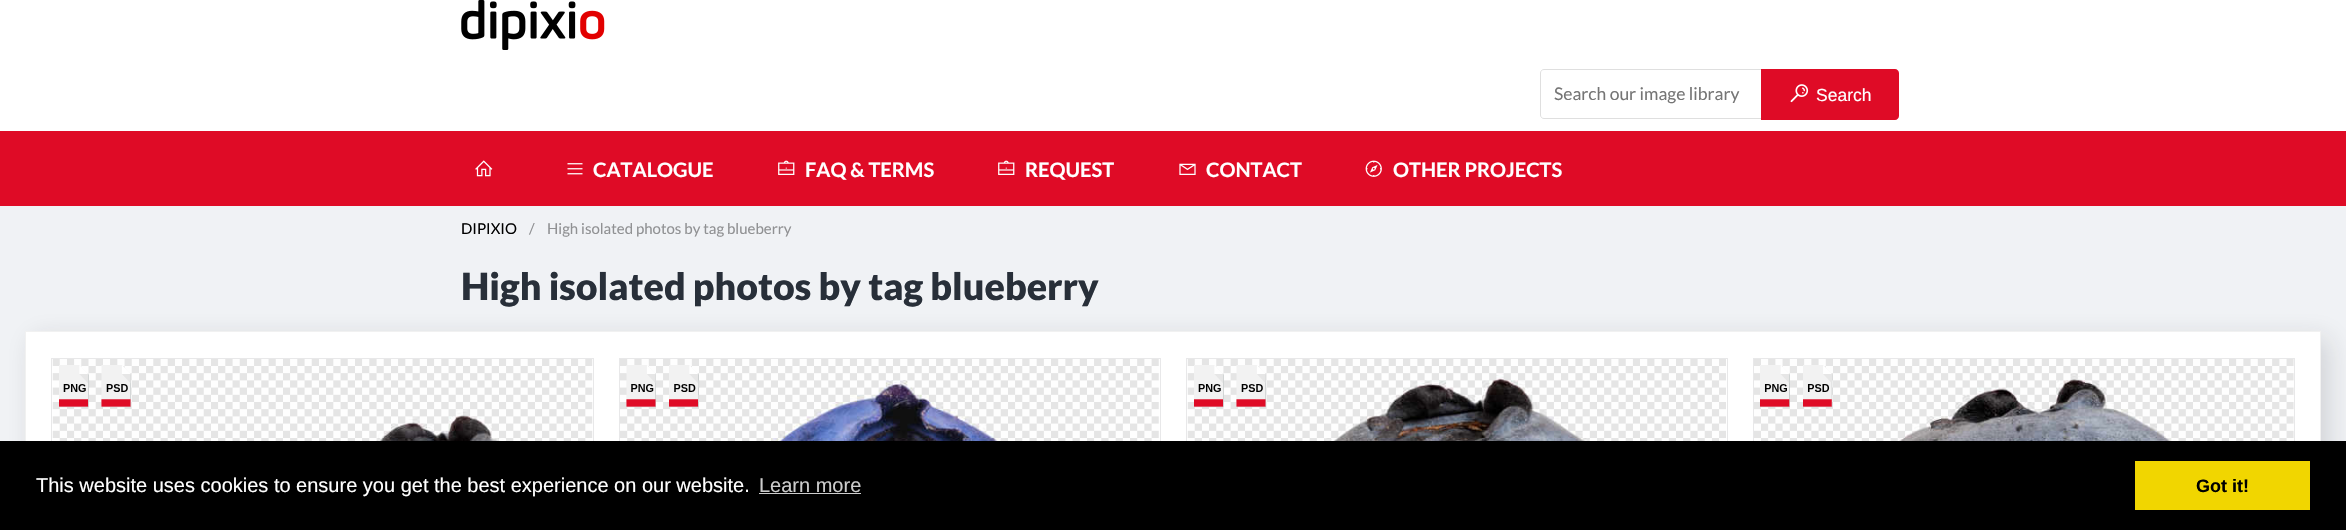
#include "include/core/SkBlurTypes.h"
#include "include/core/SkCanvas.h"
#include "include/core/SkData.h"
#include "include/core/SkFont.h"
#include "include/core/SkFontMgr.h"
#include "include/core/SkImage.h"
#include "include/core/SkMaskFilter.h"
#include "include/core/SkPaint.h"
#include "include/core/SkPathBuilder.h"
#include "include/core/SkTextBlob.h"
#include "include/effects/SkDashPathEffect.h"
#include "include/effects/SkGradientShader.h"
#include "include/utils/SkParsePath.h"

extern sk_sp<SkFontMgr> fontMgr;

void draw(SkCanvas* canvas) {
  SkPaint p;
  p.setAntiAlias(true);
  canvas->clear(SkColorSetRGB(240, 242, 245));
  p.setColor(SK_ColorWHITE);
  canvas->drawRect(SkRect::MakeLTRB(0, 0, 2346, 131), p);
  canvas->drawImageRect(SkImages::DeferredFromEncodedData(SkData::MakeFromFileName("images/1.png")), SkRect::MakeLTRB(461, 0, 605, 50), SkSamplingOptions());
  p.setStyle(SkPaint::kStroke_Style);
  p.setStrokeWidth(1);
  p.setColor(SkColorSetRGB(223, 223, 223));
  canvas->drawPath(SkPathBuilder().moveTo(1544, 69.5f).lineTo(1762.5f, 69.5f).lineTo(1762.5f, 118.5f).lineTo(1544, 118.5f).cubicTo(1542, 118.5f, 1540.5f, 117, 1540.5f, 115).lineTo(1540.5f, 73).cubicTo(1540.5f, 71, 1542, 69.5f, 1544, 69.5f).close().detach(), p);
  p.setStyle(SkPaint::kFill_Style);
  p.setColor(SkColorSetRGB(223, 11, 38));
  canvas->drawPath(SkPathBuilder().moveTo(1761, 69).lineTo(1895, 69).cubicTo(1897, 69, 1899, 71, 1899, 73).lineTo(1899, 116).cubicTo(1899, 118, 1897, 120, 1895, 120).lineTo(1761, 120).close().detach(), p);
  canvas->drawImageRect(SkImages::DeferredFromEncodedData(SkData::MakeFromFileName("images/2.png")), SkRect::MakeLTRB(1790, 84, 1809, 103), SkSamplingOptions());
  canvas->drawRect(SkRect::MakeLTRB(0, 131, 2346, 206), p);
  canvas->drawImageRect(SkImages::DeferredFromEncodedData(SkData::MakeFromFileName("images/3.png")), SkRect::MakeLTRB(475, 160, 493, 177), SkSamplingOptions());
  canvas->drawImageRect(SkImages::DeferredFromEncodedData(SkData::MakeFromFileName("images/4.png")), SkRect::MakeLTRB(567, 163, 583, 175), SkSamplingOptions());
  canvas->drawImageRect(SkImages::DeferredFromEncodedData(SkData::MakeFromFileName("images/5.png")), SkRect::MakeLTRB(778, 160, 795, 175), SkSamplingOptions());
  canvas->drawImageRect(SkImages::DeferredFromEncodedData(SkData::MakeFromFileName("images/5.png")), SkRect::MakeLTRB(998, 160, 1015, 175), SkSamplingOptions());
  canvas->drawImageRect(SkImages::DeferredFromEncodedData(SkData::MakeFromFileName("images/6.png")), SkRect::MakeLTRB(1179, 163, 1196, 175), SkSamplingOptions());
  canvas->drawImageRect(SkImages::DeferredFromEncodedData(SkData::MakeFromFileName("images/7.png")), SkRect::MakeLTRB(1365, 160, 1382, 177), SkSamplingOptions());
  p.setColor(SkColorSetARGB(38, 35, 34, 40));
  p.setMaskFilter(SkMaskFilter::MakeBlur(kNormal_SkBlurStyle, 12.5f));
  canvas->drawRect(SkRect::MakeLTRB(33, 338, 2329, 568), p);
  p.setMaskFilter(nullptr);
  p.setColor(SK_ColorWHITE);
  canvas->drawRect(SkRect::MakeLTRB(26, 332, 2320, 441), p);
  p.setStyle(SkPaint::kStroke_Style);
  p.setColor(SkColorSetRGB(241, 241, 241));
  canvas->drawRect(SkRect::MakeLTRB(25.5f, 331.5f, 2320.5f, 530.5f), p);
  p.setColor(SkColorSetRGB(232, 232, 233));
  canvas->drawRect(SkRect::MakeLTRB(51.5f, 358.5f, 593.5f, 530.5f), p);
  canvas->drawImageRect(SkImages::DeferredFromEncodedData(SkData::MakeFromFileName("images/8.png")), SkRect::MakeLTRB(52, 359, 593, 441), SkSamplingOptions());
  canvas->drawImageRect(SkImages::DeferredFromEncodedData(SkData::MakeFromFileName("images/9.png")), SkRect::MakeLTRB(59, 365, 89, 408), SkSamplingOptions());
  canvas->drawImageRect(SkImages::DeferredFromEncodedData(SkData::MakeFromFileName("images/10.png")), SkRect::MakeLTRB(101, 365, 131, 408), SkSamplingOptions());
  canvas->drawRect(SkRect::MakeLTRB(619.5f, 358.5f, 1160.5f, 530.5f), p);
  canvas->drawImageRect(SkImages::DeferredFromEncodedData(SkData::MakeFromFileName("images/11.png")), SkRect::MakeLTRB(620, 359, 1159, 441), SkSamplingOptions());
  canvas->drawImageRect(SkImages::DeferredFromEncodedData(SkData::MakeFromFileName("images/12.png")), SkRect::MakeLTRB(626, 365, 656, 408), SkSamplingOptions());
  canvas->drawImageRect(SkImages::DeferredFromEncodedData(SkData::MakeFromFileName("images/13.png")), SkRect::MakeLTRB(669, 365, 699, 408), SkSamplingOptions());
  canvas->drawRect(SkRect::MakeLTRB(1186.5f, 358.5f, 1727.5f, 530.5f), p);
  canvas->drawImageRect(SkImages::DeferredFromEncodedData(SkData::MakeFromFileName("images/14.png")), SkRect::MakeLTRB(1187, 359, 1726, 441), SkSamplingOptions());
  canvas->drawImageRect(SkImages::DeferredFromEncodedData(SkData::MakeFromFileName("images/15.png")), SkRect::MakeLTRB(1194, 365, 1224, 408), SkSamplingOptions());
  canvas->drawImageRect(SkImages::DeferredFromEncodedData(SkData::MakeFromFileName("images/16.png")), SkRect::MakeLTRB(1236, 365, 1266, 408), SkSamplingOptions());
  canvas->drawRect(SkRect::MakeLTRB(1753.5f, 358.5f, 2294.5f, 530.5f), p);
  canvas->drawImageRect(SkImages::DeferredFromEncodedData(SkData::MakeFromFileName("images/17.png")), SkRect::MakeLTRB(1754, 359, 2294, 441), SkSamplingOptions());
  canvas->drawImageRect(SkImages::DeferredFromEncodedData(SkData::MakeFromFileName("images/18.png")), SkRect::MakeLTRB(1760, 365, 1790, 408), SkSamplingOptions());
  canvas->drawImageRect(SkImages::DeferredFromEncodedData(SkData::MakeFromFileName("images/19.png")), SkRect::MakeLTRB(1803, 365, 1833, 408), SkSamplingOptions());
  p.setStyle(SkPaint::kFill_Style);
  p.setColor(SK_ColorBLACK);
  canvas->drawRect(SkRect::MakeLTRB(0, 441, 2346, 530), p);
  p.setColor(SkColorSetRGB(204, 204, 204));
  canvas->drawRect(SkRect::MakeLTRB(759, 493, 861, 494), p);
  p.setColor(SkColorSetRGB(241, 214, 0));
  canvas->drawRect(SkRect::MakeLTRB(2135, 461, 2310, 510), p);
  SkFont font1(fontMgr->matchFamilyStyle("Lato", SkFontStyle::Normal()), 17.5f);
  font1.setSubpixel(true);
  p.setColor(SkColorSetRGB(117, 117, 117));
  canvas->drawString("Search our image library", 1554, 100, font1, p);
  SkFont font2(fontMgr->matchFamilyStyle("Liberation Sans", SkFontStyle::Normal()), 17.5f);
  font2.setSubpixel(true);
  p.setColor(SK_ColorWHITE);
  canvas->drawString("Search", 1816, 101, font2, p);
  SkFont font3(fontMgr->matchFamilyStyle("Lato", SkFontStyle::Bold()), 20);
  font3.setSubpixel(true);
  canvas->drawString("CATALOGUE", 593, 177, font3, p);
  canvas->drawString("FAQ & TERMS", 805, 177, font3, p);
  canvas->drawString("REQUEST", 1025, 177, font3, p);
  canvas->drawString("CONTACT", 1206, 177, font3, p);
  canvas->drawString("OTHER PROJECTS", 1393, 177, font3, p);
  SkFont font4(fontMgr->matchFamilyStyle("Lato", SkFontStyle::Normal()), 15);
  font4.setSubpixel(true);
  p.setColor(SK_ColorBLACK);
  canvas->drawString("DIPIXIO", 461, 234, font4, p);
  p.setColor(SkColorSetRGB(144, 145, 147));
  canvas->drawString("/", 529, 234, font4, p);
  canvas->drawString("High isolated photos by tag blueberry", 547, 234, font4, p);
  SkFont font5(fontMgr->matchFamilyStyle("Lato", SkFontStyle(900, SkFontStyle::kNormal_Width, SkFontStyle::kUpright_Slant)), 37.5f);
  font5.setSubpixel(true);
  p.setColor(SkColorSetRGB(40, 47, 57));
  canvas->drawString("High isolated photos by tag blueberry", 461, 300, font5, p);
  SkFont font6(fontMgr->matchFamilyStyle("Liberation Sans", SkFontStyle::Normal()), 20);
  font6.setSubpixel(true);
  p.setColor(SK_ColorWHITE);
  canvas->drawString("This website uses cookies to ensure you get the best experience on our website.", 36, 492, font6, p);
  p.setColor(SkColorSetRGB(204, 204, 204));
  canvas->drawString("Learn more", 759, 492, font6, p);
  SkFont font7(fontMgr->matchFamilyStyle("Liberation Sans", SkFontStyle::Bold()), 18);
  font7.setSubpixel(true);
  p.setColor(SK_ColorBLACK);
  canvas->drawString("Got it!", 2196, 492, font7, p);
}
